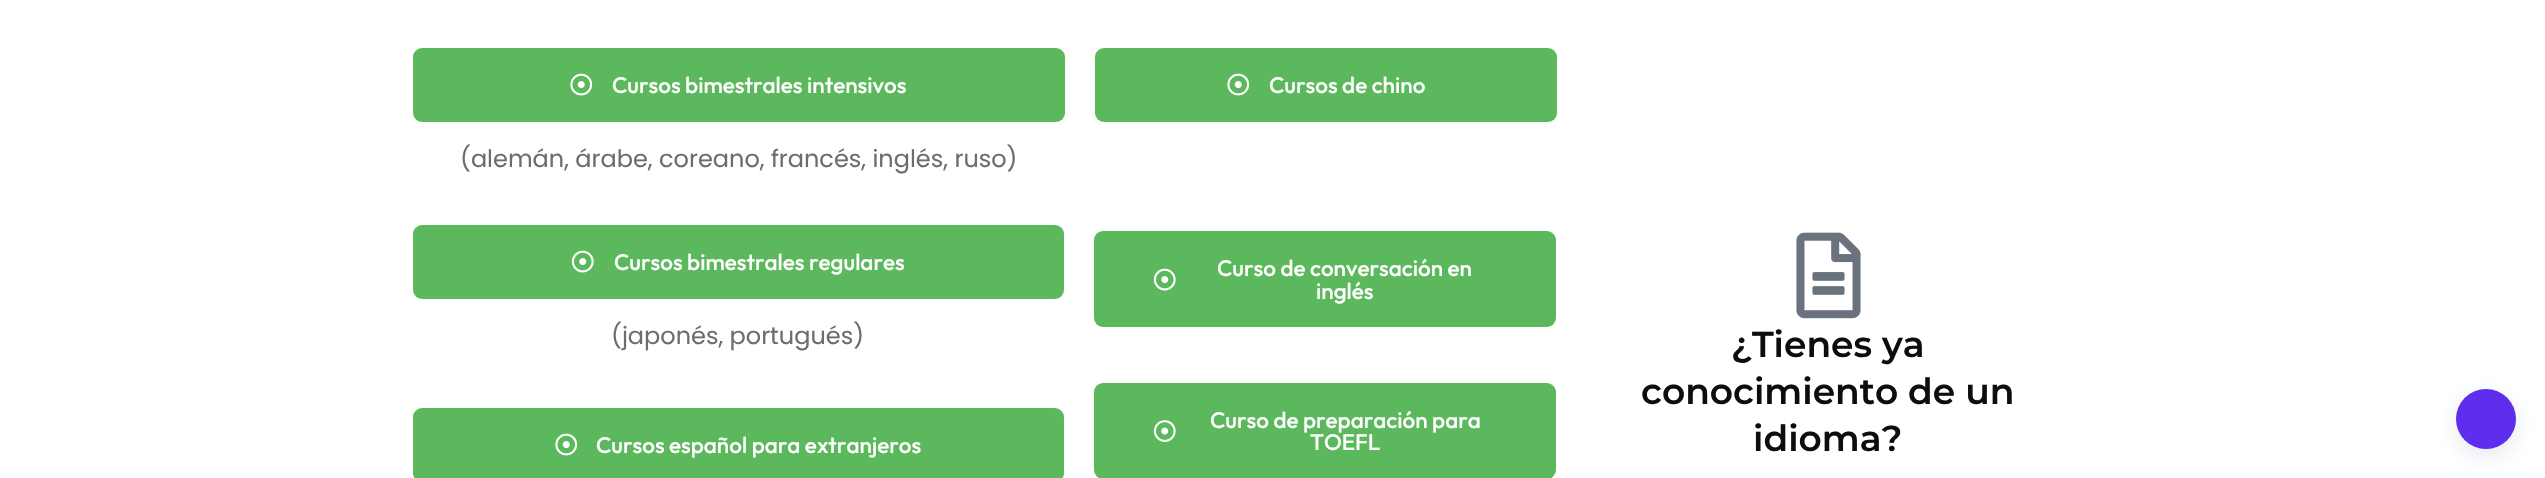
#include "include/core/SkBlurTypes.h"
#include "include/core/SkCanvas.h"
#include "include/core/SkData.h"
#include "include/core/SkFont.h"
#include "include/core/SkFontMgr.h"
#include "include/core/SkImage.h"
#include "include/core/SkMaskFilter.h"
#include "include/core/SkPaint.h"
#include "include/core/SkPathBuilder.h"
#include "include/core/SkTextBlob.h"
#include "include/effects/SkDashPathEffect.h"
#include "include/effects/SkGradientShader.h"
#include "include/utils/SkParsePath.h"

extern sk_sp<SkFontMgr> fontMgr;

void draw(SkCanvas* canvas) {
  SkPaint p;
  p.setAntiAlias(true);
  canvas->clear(SK_ColorWHITE);
  p.setColor(SkColorSetRGB(92, 184, 92));
  canvas->drawRoundRect(SkRect::MakeLTRB(413, 48, 1065, 122), 9, 9, p);
  canvas->drawImageRect(SkImages::DeferredFromEncodedData(SkData::MakeFromFileName("images/1.png")), SkRect::MakeLTRB(570, 73, 593, 96), SkSamplingOptions());
  canvas->drawRoundRect(SkRect::MakeLTRB(1095, 48, 1557, 122), 9, 9, p);
  canvas->drawImageRect(SkImages::DeferredFromEncodedData(SkData::MakeFromFileName("images/1.png")), SkRect::MakeLTRB(1227, 73, 1250, 96), SkSamplingOptions());
  canvas->drawRoundRect(SkRect::MakeLTRB(413, 225, 1064, 299), 9, 9, p);
  canvas->drawImageRect(SkImages::DeferredFromEncodedData(SkData::MakeFromFileName("images/2.png")), SkRect::MakeLTRB(571, 250, 594, 273), SkSamplingOptions());
  canvas->drawRoundRect(SkRect::MakeLTRB(413, 408, 1064, 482), 9, 9, p);
  canvas->drawImageRect(SkImages::DeferredFromEncodedData(SkData::MakeFromFileName("images/1.png")), SkRect::MakeLTRB(555, 433, 578, 456), SkSamplingOptions());
  canvas->drawRoundRect(SkRect::MakeLTRB(1094, 231, 1556, 327), 9, 9, p);
  canvas->drawImageRect(SkImages::DeferredFromEncodedData(SkData::MakeFromFileName("images/2.png")), SkRect::MakeLTRB(1153, 268, 1176, 291), SkSamplingOptions());
  canvas->drawRoundRect(SkRect::MakeLTRB(1094, 383, 1556, 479), 9, 9, p);
  canvas->drawImageRect(SkImages::DeferredFromEncodedData(SkData::MakeFromFileName("images/3.png")), SkRect::MakeLTRB(1153, 420, 1176, 442), SkSamplingOptions());
  canvas->drawImageRect(SkImages::DeferredFromEncodedData(SkData::MakeFromFileName("images/4.png")), SkRect::MakeLTRB(1796, 232, 1861, 319), SkSamplingOptions());
  p.setColor(SkColorSetARGB(26, 1, 29, 80));
  p.setMaskFilter(SkMaskFilter::MakeBlur(kNormal_SkBlurStyle, 11));
  canvas->drawRoundRect(SkRect::MakeLTRB(2456, 396, 2516, 456), 30, 30, p);
  p.setMaskFilter(nullptr);
  p.setColor(SkColorSetRGB(95, 45, 238));
  canvas->drawCircle(2486, 419, 30, p);
  SkFont font1(fontMgr->matchFamilyStyle("Outfit", SkFontStyle(500, SkFontStyle::kNormal_Width, SkFontStyle::kUpright_Slant)), 22.5f);
  font1.setSubpixel(true);
  p.setColor(SK_ColorWHITE);
  canvas->drawString("Cursos bimestrales intensivos", 612, 93, font1, p);
  SkFont font2(fontMgr->matchFamilyStyle("Poppins", SkFontStyle::Normal()), 24);
  font2.setSubpixel(true);
  p.setColor(SkColorSetRGB(109, 109, 109));
  canvas->drawString("(alemán, árabe, coreano, francés, inglés, ruso)", 460, 167, font2, p);
  p.setColor(SK_ColorWHITE);
  canvas->drawString("Cursos de chino", 1269, 93, font1, p);
  canvas->drawString("Cursos bimestrales regulares", 614, 270, font1, p);
  p.setColor(SkColorSetRGB(109, 109, 109));
  canvas->drawString("(japonés, portugués)", 611, 344, font2, p);
  p.setColor(SK_ColorWHITE);
  canvas->drawString("Cursos español para extranjeros", 596, 453, font1, p);
  canvas->drawString("Curso de conversación en", 1217, 276, font1, p);
  canvas->drawString("inglés", 1316, 299, font1, p);
  canvas->drawString("Curso de preparación para", 1210, 428, font1, p);
  canvas->drawString("TOEFL", 1310, 450, font1, p);
  SkFont font3(fontMgr->matchFamilyStyle("Montserrat", SkFontStyle(600, SkFontStyle::kNormal_Width, SkFontStyle::kUpright_Slant)), 36);
  font3.setSubpixel(true);
  p.setColor(SkColorSetRGB(13, 13, 15));
  canvas->drawString("¿Tienes ya", 1731, 357, font3, p);
  canvas->drawString("conocimiento de un", 1641, 404, font3, p);
  canvas->drawString("idioma?", 1753, 451, font3, p);
}
